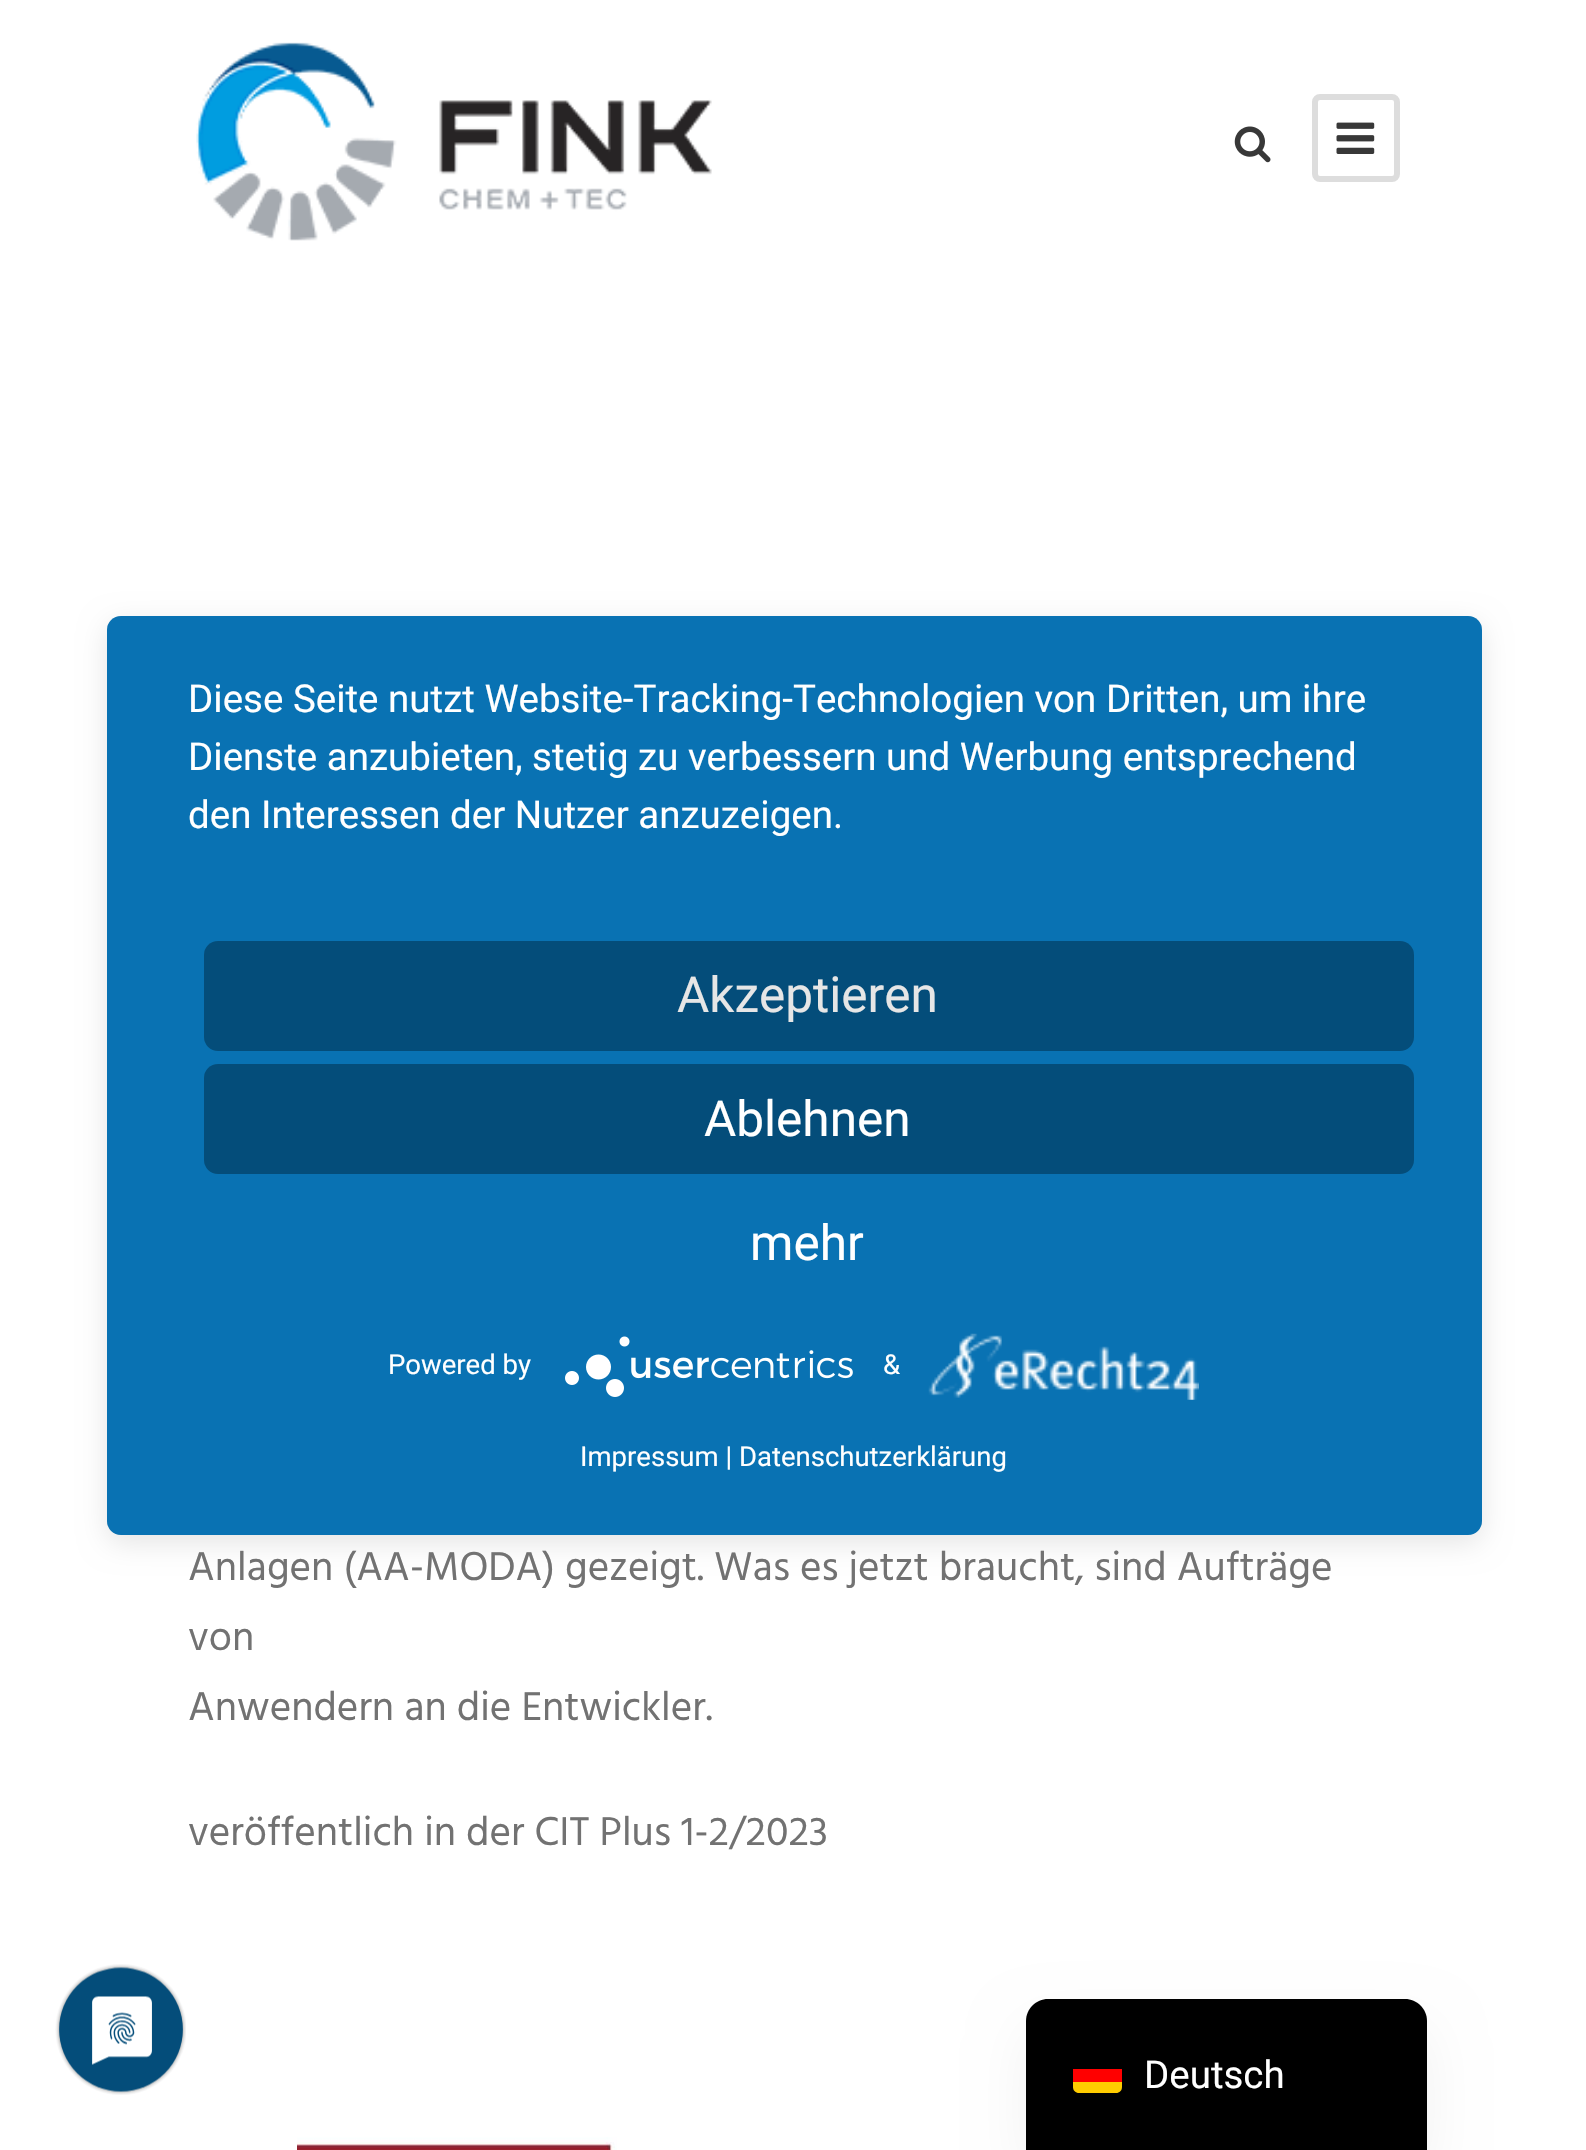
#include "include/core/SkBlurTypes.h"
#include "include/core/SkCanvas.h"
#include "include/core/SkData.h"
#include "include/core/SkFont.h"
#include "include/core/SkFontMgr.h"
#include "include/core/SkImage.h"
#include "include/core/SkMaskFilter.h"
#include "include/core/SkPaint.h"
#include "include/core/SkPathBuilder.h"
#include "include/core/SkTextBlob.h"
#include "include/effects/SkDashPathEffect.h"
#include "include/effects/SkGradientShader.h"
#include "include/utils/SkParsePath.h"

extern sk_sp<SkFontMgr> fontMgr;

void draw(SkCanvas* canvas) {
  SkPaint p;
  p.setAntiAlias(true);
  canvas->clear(SK_ColorWHITE);
  canvas->drawImageRect(SkImages::DeferredFromEncodedData(SkData::MakeFromFileName("images/1.png")), SkRect::MakeLTRB(196, 42, 712, 241), SkSamplingOptions());
  canvas->drawImageRect(SkImages::DeferredFromEncodedData(SkData::MakeFromFileName("images/2.png")), SkRect::MakeLTRB(1234, 126, 1271, 163), SkSamplingOptions());
  p.setStyle(SkPaint::kStroke_Style);
  p.setStrokeWidth(6);
  p.setColor(SkColorSetRGB(221, 221, 221));
  canvas->drawRoundRect(SkRect::MakeLTRB(1315, 97, 1397, 179), 5, 5, p);
  canvas->drawImageRect(SkImages::DeferredFromEncodedData(SkData::MakeFromFileName("images/3.png")), SkRect::MakeLTRB(1336, 122, 1375, 154), SkSamplingOptions());
  p.setStyle(SkPaint::kFill_Style);
  p.setColor(SkColorSetARGB(26, 0, 0, 0));
  p.setMaskFilter(SkMaskFilter::MakeBlur(kNormal_SkBlurStyle, 14));
  canvas->drawRoundRect(SkRect::MakeLTRB(107, 624, 1482, 1543), 14, 14, p);
  p.setMaskFilter(nullptr);
  canvas->save();
  canvas->clipPath(SkPathBuilder().moveTo(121, 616).lineTo(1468, 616).cubicTo(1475.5f, 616, 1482, 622.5f, 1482, 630).lineTo(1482, 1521).cubicTo(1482, 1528.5f, 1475.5f, 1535, 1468, 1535).lineTo(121, 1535).cubicTo(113.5f, 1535, 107, 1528.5f, 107, 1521).lineTo(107, 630).cubicTo(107, 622.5f, 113.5f, 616, 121, 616).close().detach(), true);
  p.setColor(SkColorSetARGB(77, 0, 0, 0));
  p.setMaskFilter(SkMaskFilter::MakeBlur(kNormal_SkBlurStyle, 49.5f));
  canvas->drawRect(SkRect::MakeLTRB(107, 633, 1482, 1551), p);
  p.setMaskFilter(nullptr);
  canvas->restore();
  p.setColor(SkColorSetRGB(9, 114, 179));
  canvas->drawRoundRect(SkRect::MakeLTRB(107, 616, 1482, 1535), 14, 14, p);
  p.setColor(SkColorSetRGB(4, 77, 122));
  canvas->drawRoundRect(SkRect::MakeLTRB(204, 941, 1414, 1051), 14, 14, p);
  canvas->drawRoundRect(SkRect::MakeLTRB(204, 1064, 1414, 1174), 14, 14, p);
  canvas->drawImageRect(SkImages::DeferredFromEncodedData(SkData::MakeFromFileName("images/4.png")), SkRect::MakeLTRB(565, 1336, 853, 1397), SkSamplingOptions());
  canvas->drawImageRect(SkImages::DeferredFromEncodedData(SkData::MakeFromFileName("images/5.png")), SkRect::MakeLTRB(928, 1333, 1199, 1400), SkSamplingOptions());
  canvas->drawImageRect(SkImages::DeferredFromEncodedData(SkData::MakeFromFileName("images/6.png")), SkRect::MakeLTRB(55, 1964, 186, 2095), SkSamplingOptions());
  canvas->drawImageRect(SkImages::DeferredFromEncodedData(SkData::MakeFromFileName("images/7.png")), SkRect::MakeLTRB(297, 2137, 617, 2150), SkSamplingOptions());
  p.setColor(SkColorSetARGB(13, 0, 0, 0));
  p.setMaskFilter(SkMaskFilter::MakeBlur(kNormal_SkBlurStyle, 27.5f));
  canvas->drawRoundRect(SkRect::MakeLTRB(1026, 2027, 1427, 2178), 22, 22, p);
  p.setMaskFilter(nullptr);
  p.setColor(SK_ColorBLACK);
  canvas->drawPath(SkPathBuilder().moveTo(1048, 1999).lineTo(1405, 1999).cubicTo(1417, 1999, 1427, 2009, 1427, 2021).lineTo(1427, 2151).lineTo(1026, 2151).lineTo(1026, 2021).cubicTo(1026, 2009, 1036, 1999, 1048, 1999).close().detach(), p);
  p.setColor(SkColorSetRGB(255, 204, 0));
  canvas->drawPath(SkPathBuilder().moveTo(1073, 2082).lineTo(1122, 2082).lineTo(1122, 2087).cubicTo(1122, 2090.5f, 1119.5f, 2093, 1116, 2093).lineTo(1079, 2093).cubicTo(1075.5f, 2093, 1073, 2090.5f, 1073, 2087).close().detach(), p);
  p.setColor(SkColorSetRGB(255, 0, 0));
  canvas->drawRect(SkRect::MakeLTRB(1073, 2069, 1122, 2082), p);
  SkFont font1(fontMgr->matchFamilyStyle("Roboto", SkFontStyle::Normal()), 38.5f);
  font1.setSubpixel(true);
  p.setColor(SK_ColorWHITE);
  canvas->drawString("Diese Seite nutzt Website-Tracking-Technologien von Dritten, um ihre", 188, 712, font1, p);
  canvas->drawString("Dienste anzubieten, stetig zu verbessern und Werbung entsprechend", 188, 770, font1, p);
  canvas->drawString("den Interessen der Nutzer anzuzeigen.", 188, 828, font1, p);
  SkFont font2(fontMgr->matchFamilyStyle("Roboto", SkFontStyle::Normal()), 49.5f);
  font2.setSubpixel(true);
  p.setColor(SkColorSetRGB(230, 230, 230));
  canvas->drawString("Akzeptieren", 677, 1012, font2, p);
  p.setColor(SK_ColorWHITE);
  canvas->drawString("Ablehnen", 704, 1136, font2, p);
  canvas->drawString("mehr", 750, 1260, font2, p);
  SkFont font3(fontMgr->matchFamilyStyle("Roboto", SkFontStyle::Normal()), 27.5f);
  font3.setSubpixel(true);
  canvas->drawString("Powered by", 388, 1374, font3, p);
  canvas->drawString("&", 883, 1374, font3, p);
  canvas->drawString("Impressum | Datenschutzerklärung", 580, 1466, font3, p);
  SkFont font4(fontMgr->matchFamilyStyle("Hind", SkFontStyle::Normal()), 41.25f);
  font4.setSubpixel(true);
  p.setColor(SkColorSetRGB(114, 114, 114));
  canvas->drawString("Anlagen (AA-MODA) gezeigt. Was es jetzt braucht, sind Aufträge", 188, 1580, font4, p);
  canvas->drawString("von", 188, 1650, font4, p);
  canvas->drawString("Anwendern an die Entwickler.", 188, 1720, font4, p);
  canvas->drawString("veröffentlich in der CIT Plus 1-2/2023", 188, 1845, font4, p);
  p.setColor(SK_ColorWHITE);
  canvas->drawString("Deutsch", 1144, 2088, font1, p);
}
